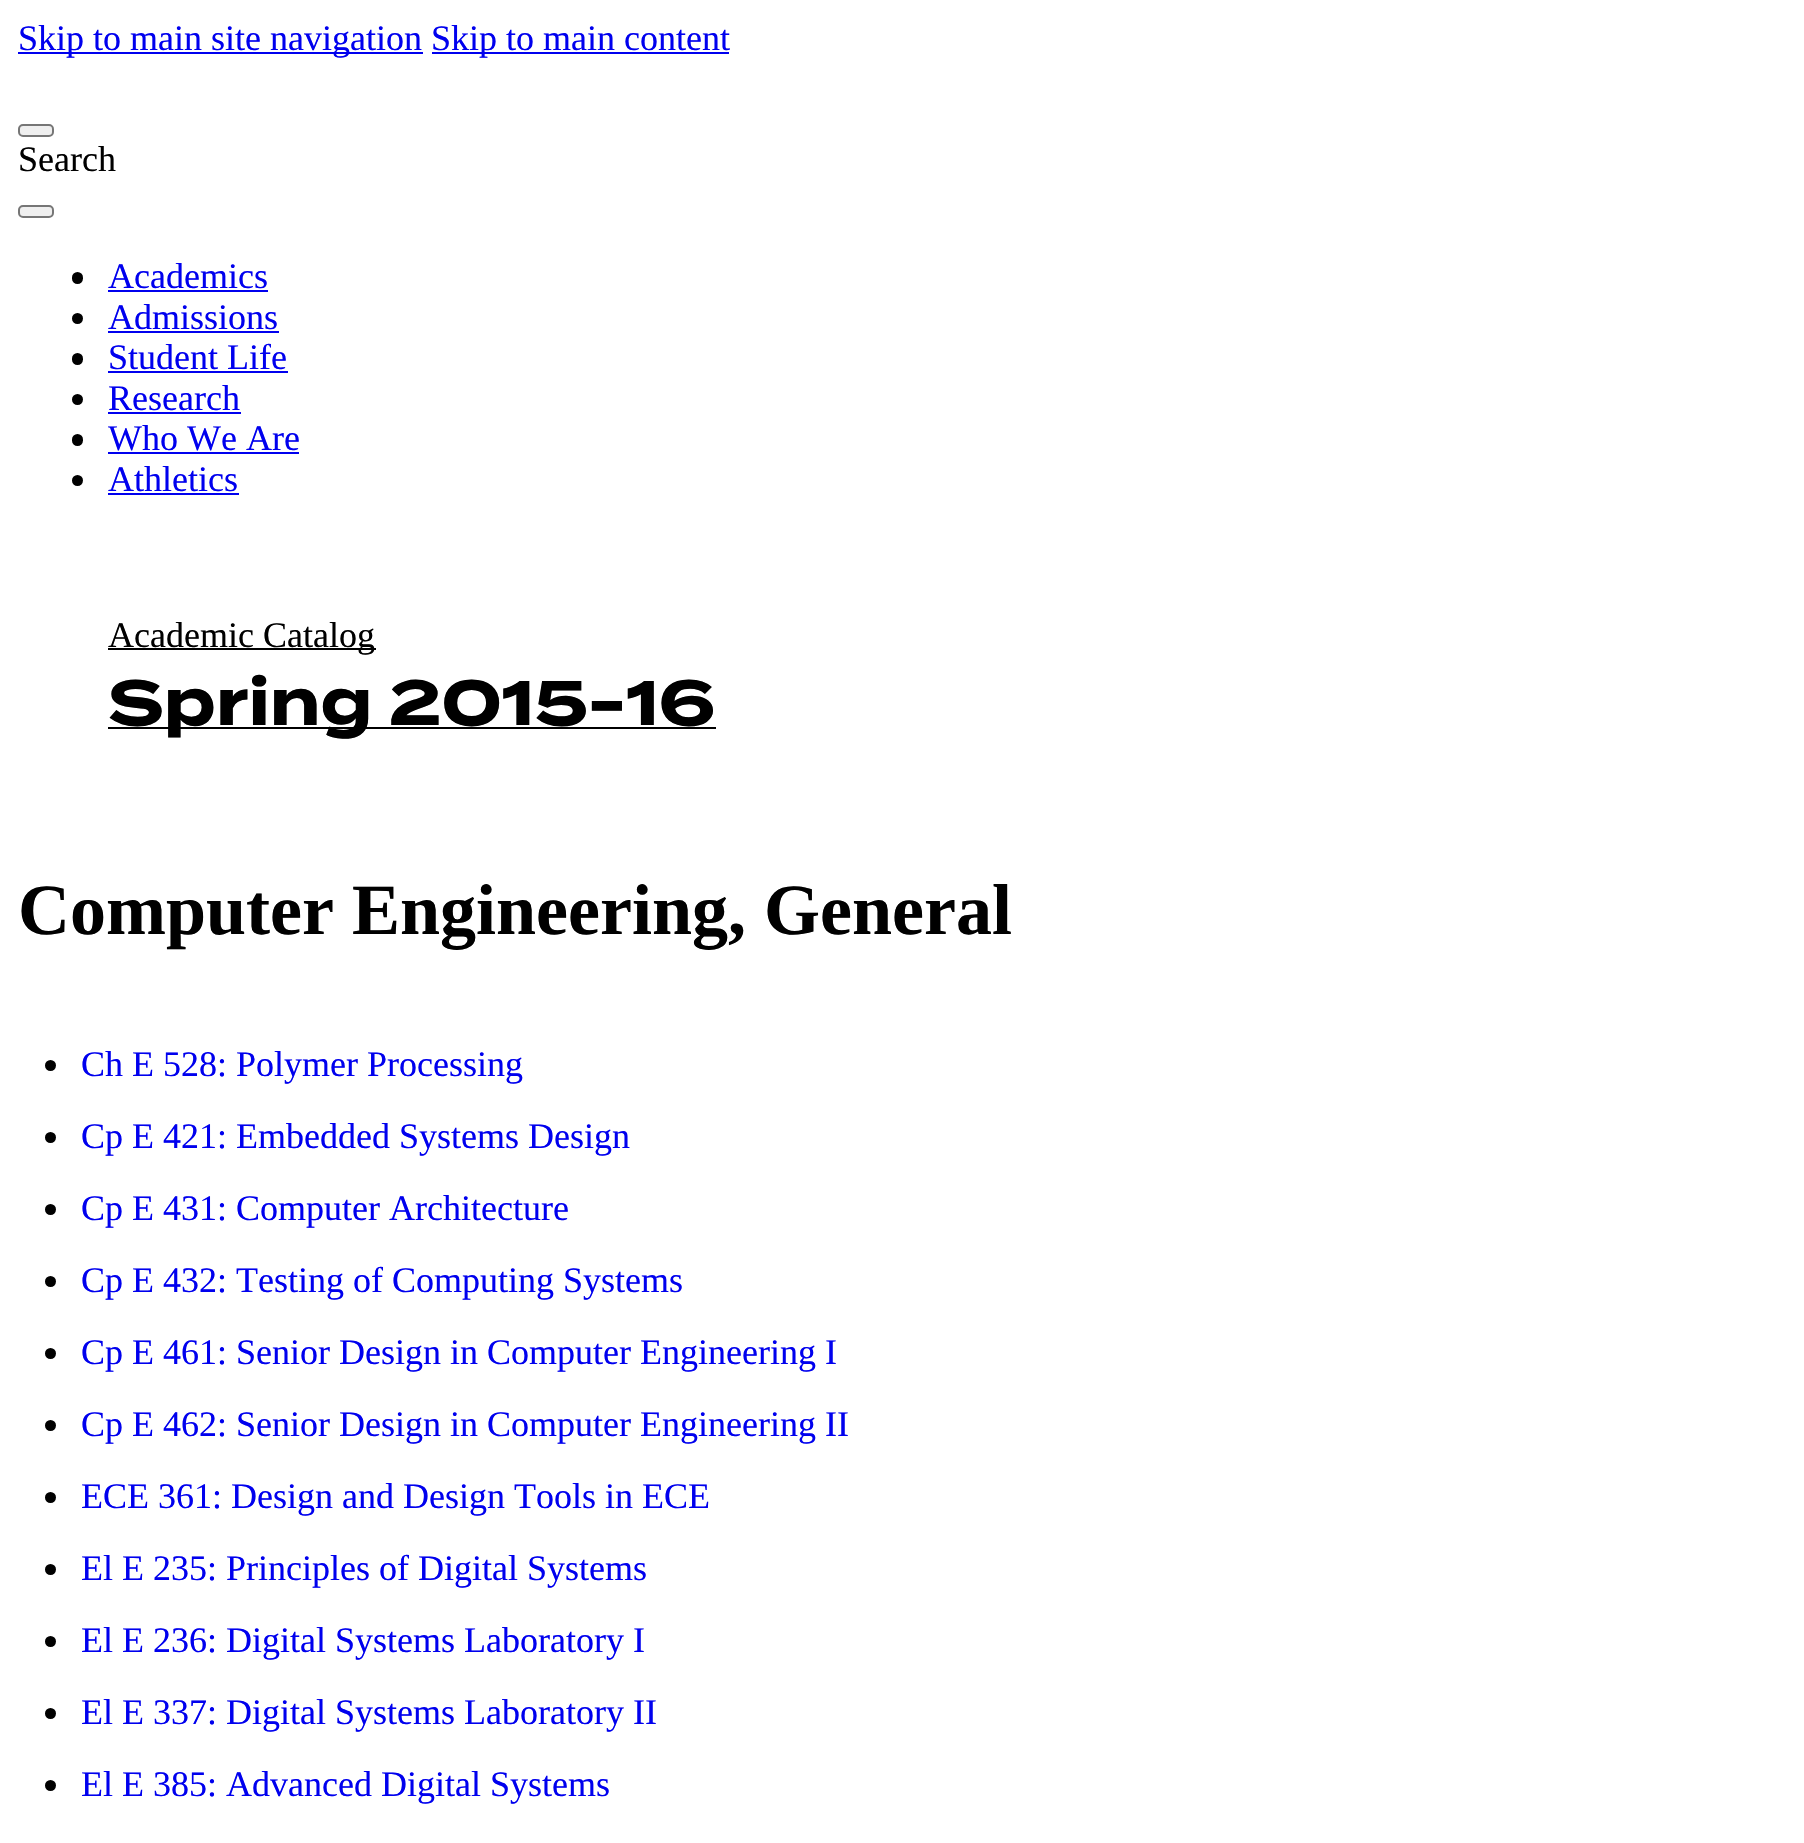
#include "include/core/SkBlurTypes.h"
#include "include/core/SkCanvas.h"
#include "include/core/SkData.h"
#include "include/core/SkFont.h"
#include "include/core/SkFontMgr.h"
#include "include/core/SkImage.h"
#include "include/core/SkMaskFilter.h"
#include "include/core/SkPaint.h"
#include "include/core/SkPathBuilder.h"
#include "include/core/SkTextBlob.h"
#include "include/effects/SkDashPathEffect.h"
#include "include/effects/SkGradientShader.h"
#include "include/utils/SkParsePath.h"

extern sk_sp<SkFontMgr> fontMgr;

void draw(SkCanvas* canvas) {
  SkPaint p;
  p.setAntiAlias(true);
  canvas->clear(SK_ColorWHITE);
  p.setColor(SkColorSetRGB(0, 0, 238));
  canvas->drawRect(SkRect::MakeLTRB(18, 52, 423, 54), p);
  canvas->drawRect(SkRect::MakeLTRB(432, 52, 729, 54), p);
  p.setColor(SkColorSetRGB(239, 239, 239));
  canvas->drawRoundRect(SkRect::MakeLTRB(19, 125, 53, 136), 4, 4, p);
  p.setStyle(SkPaint::kStroke_Style);
  p.setStrokeWidth(2);
  p.setColor(SkColorSetRGB(118, 118, 118));
  canvas->drawRoundRect(SkRect::MakeLTRB(19, 125, 53, 136), 4, 4, p);
  p.setStyle(SkPaint::kFill_Style);
  p.setColor(SkColorSetRGB(239, 239, 239));
  canvas->drawRoundRect(SkRect::MakeLTRB(19, 206, 53, 217), 4, 4, p);
  p.setStyle(SkPaint::kStroke_Style);
  p.setColor(SkColorSetRGB(118, 118, 118));
  canvas->drawRoundRect(SkRect::MakeLTRB(19, 206, 53, 217), 4, 4, p);
  p.setStyle(SkPaint::kFill_Style);
  p.setColor(SK_ColorBLACK);
  canvas->drawRoundRect(SkRect::MakeLTRB(72, 272, 83, 284), 5.5f, 5.5f, p);
  p.setColor(SkColorSetRGB(0, 0, 238));
  canvas->drawRect(SkRect::MakeLTRB(108, 290, 268, 292), p);
  p.setColor(SK_ColorBLACK);
  canvas->drawCircle(77.5f, 318.5f, 5.5f, p);
  p.setColor(SkColorSetRGB(0, 0, 238));
  canvas->drawRect(SkRect::MakeLTRB(108, 331, 279, 333), p);
  p.setColor(SK_ColorBLACK);
  canvas->drawRoundRect(SkRect::MakeLTRB(72, 353, 83, 365), 5.5f, 5.5f, p);
  p.setColor(SkColorSetRGB(0, 0, 238));
  canvas->drawRect(SkRect::MakeLTRB(108, 371, 288, 373), p);
  p.setColor(SK_ColorBLACK);
  canvas->drawCircle(77.5f, 399.5f, 5.5f, p);
  p.setColor(SkColorSetRGB(0, 0, 238));
  canvas->drawRect(SkRect::MakeLTRB(108, 412, 241, 414), p);
  p.setColor(SK_ColorBLACK);
  canvas->drawRoundRect(SkRect::MakeLTRB(72, 434, 83, 446), 5.5f, 5.5f, p);
  p.setColor(SkColorSetRGB(0, 0, 238));
  canvas->drawRect(SkRect::MakeLTRB(108, 452, 299, 454), p);
  p.setColor(SK_ColorBLACK);
  canvas->drawCircle(77.5f, 480.5f, 5.5f, p);
  p.setColor(SkColorSetRGB(0, 0, 238));
  canvas->drawRect(SkRect::MakeLTRB(108, 493, 239, 495), p);
  p.setColor(SK_ColorBLACK);
  canvas->drawRect(SkRect::MakeLTRB(108, 648, 376, 650), p);
  canvas->drawRect(SkRect::MakeLTRB(108, 727, 716, 729), p);
  canvas->drawCircle(50.5f, 1065.5f, 5.5f, p);
  canvas->drawCircle(50.5f, 1137.5f, 5.5f, p);
  canvas->drawCircle(50.5f, 1209.5f, 5.5f, p);
  canvas->drawCircle(50.5f, 1281.5f, 5.5f, p);
  canvas->drawCircle(50.5f, 1353.5f, 5.5f, p);
  canvas->drawCircle(50.5f, 1425.5f, 5.5f, p);
  canvas->drawCircle(50.5f, 1497.5f, 5.5f, p);
  canvas->drawCircle(50.5f, 1569.5f, 5.5f, p);
  canvas->drawCircle(50.5f, 1641.5f, 5.5f, p);
  canvas->drawCircle(50.5f, 1713.5f, 5.5f, p);
  canvas->drawCircle(50.5f, 1785.5f, 5.5f, p);
  SkFont font1(fontMgr->matchFamilyStyle("Liberation Serif", SkFontStyle::Normal()), 36);
  font1.setSubpixel(true);
  p.setColor(SkColorSetRGB(0, 0, 238));
  canvas->drawString("Skip to main site navigation", 18, 50, font1, p);
  canvas->drawString("Skip to main content", 431, 50, font1, p);
  p.setColor(SK_ColorBLACK);
  canvas->drawString("Search", 18, 171, font1, p);
  p.setColor(SkColorSetRGB(0, 0, 238));
  canvas->drawString("Academics", 108, 288, font1, p);
  canvas->drawString("Admissions", 108, 329, font1, p);
  canvas->drawString("Student Life", 108, 369, font1, p);
  canvas->drawString("Research", 108, 410, font1, p);
  canvas->drawString("Who We Are", 108, 450, font1, p);
  canvas->drawString("Athletics", 108, 491, font1, p);
  p.setColor(SK_ColorBLACK);
  canvas->drawString("Academic Catalog", 108, 647, font1, p);
  SkFont font2(fontMgr->matchFamilyStyle("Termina", SkFontStyle::Bold()), 63);
  font2.setSubpixel(true);
  canvas->drawString("Spring 2015-16", 108, 725, font2, p);
  SkFont font3(fontMgr->matchFamilyStyle("Liberation Serif", SkFontStyle::Bold()), 72);
  font3.setSubpixel(true);
  canvas->drawString("Computer Engineering, General", 18, 934, font3, p);
  p.setColor(SkColorSetRGB(0, 0, 238));
  canvas->drawString("Ch E 528: Polymer Processing", 81, 1076, font1, p);
  canvas->drawString("Cp E 421: Embedded Systems Design", 81, 1148, font1, p);
  canvas->drawString("Cp E 431: Computer Architecture", 81, 1220, font1, p);
  canvas->drawString("Cp E 432: Testing of Computing Systems", 81, 1292, font1, p);
  canvas->drawString("Cp E 461: Senior Design in Computer Engineering I", 81, 1364, font1, p);
  canvas->drawString("Cp E 462: Senior Design in Computer Engineering II", 81, 1436, font1, p);
  canvas->drawString("ECE 361: Design and Design Tools in ECE", 81, 1508, font1, p);
  canvas->drawString("El E 235: Principles of Digital Systems", 81, 1580, font1, p);
  canvas->drawString("El E 236: Digital Systems Laboratory I", 81, 1652, font1, p);
  canvas->drawString("El E 337: Digital Systems Laboratory II", 81, 1724, font1, p);
  canvas->drawString("El E 385: Advanced Digital Systems", 81, 1796, font1, p);
}
